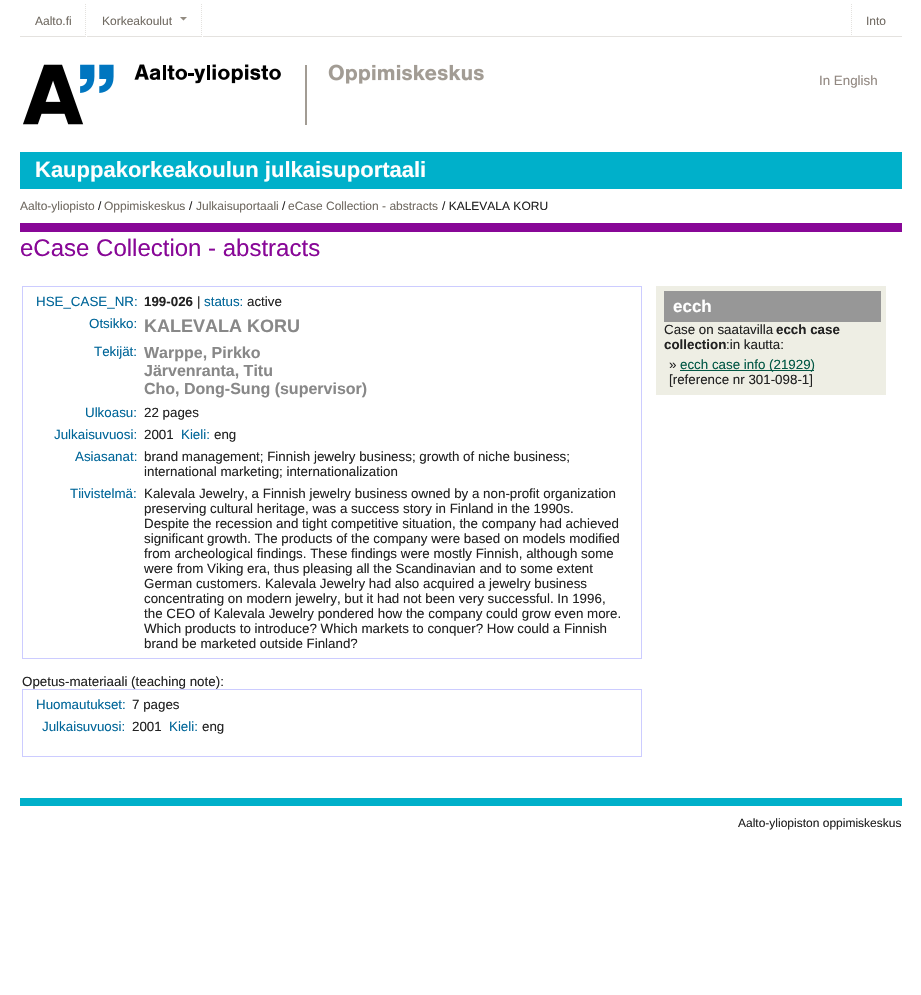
#include "include/core/SkBlurTypes.h"
#include "include/core/SkCanvas.h"
#include "include/core/SkData.h"
#include "include/core/SkFont.h"
#include "include/core/SkFontMgr.h"
#include "include/core/SkImage.h"
#include "include/core/SkMaskFilter.h"
#include "include/core/SkPaint.h"
#include "include/core/SkPathBuilder.h"
#include "include/core/SkTextBlob.h"
#include "include/effects/SkDashPathEffect.h"
#include "include/effects/SkGradientShader.h"
#include "include/utils/SkParsePath.h"

extern sk_sp<SkFontMgr> fontMgr;

void draw(SkCanvas* canvas) {
  SkPaint p;
  p.setAntiAlias(true);
  canvas->clear(SK_ColorWHITE);
  p.setColor(SkColorSetRGB(228, 226, 223));
  canvas->drawRect(SkRect::MakeLTRB(20, 36, 902, 37), p);
  canvas->drawImageRect(SkImages::DeferredFromEncodedData(SkData::MakeFromFileName("images/1.png")), SkRect::MakeLTRB(85, 4, 86, 35), SkSamplingOptions());
  canvas->drawImageRect(SkImages::DeferredFromEncodedData(SkData::MakeFromFileName("images/1.png")), SkRect::MakeLTRB(201, 4, 202, 35), SkSamplingOptions());
  p.setColor(SK_ColorWHITE);
  canvas->drawRect(SkRect::MakeLTRB(202, 36, 203, 37), p);
  canvas->drawRect(SkRect::MakeLTRB(86, 36, 87, 37), p);
  canvas->drawImageRect(SkImages::DeferredFromEncodedData(SkData::MakeFromFileName("images/2.png")), SkRect::MakeLTRB(180, 17, 187, 21), SkSamplingOptions());
  canvas->drawImageRect(SkImages::DeferredFromEncodedData(SkData::MakeFromFileName("images/1.png")), SkRect::MakeLTRB(851, 4, 852, 35), SkSamplingOptions());
  canvas->drawImageRect(SkImages::DeferredFromEncodedData(SkData::MakeFromFileName("images/3.png")), SkRect::MakeLTRB(23, 64, 484, 125), SkSamplingOptions());
  p.setColor(SkColorSetRGB(0, 176, 202));
  canvas->drawRect(SkRect::MakeLTRB(20, 152, 902, 189), p);
  p.setColor(SkColorSetRGB(136, 7, 151));
  canvas->drawRect(SkRect::MakeLTRB(20, 223, 902, 232), p);
  p.setStyle(SkPaint::kStroke_Style);
  p.setStrokeWidth(1);
  p.setColor(SkColorSetRGB(204, 204, 255));
  canvas->drawRect(SkRect::MakeLTRB(22.5f, 286.5f, 641.5f, 658.5f), p);
  canvas->drawRect(SkRect::MakeLTRB(22.5f, 689.5f, 641.5f, 756.5f), p);
  p.setStyle(SkPaint::kFill_Style);
  p.setColor(SkColorSetRGB(238, 238, 228));
  canvas->drawRect(SkRect::MakeLTRB(656, 286, 886, 395), p);
  p.setColor(SkColorSetRGB(151, 151, 151));
  canvas->drawRect(SkRect::MakeLTRB(664, 291, 881, 322), p);
  p.setColor(SkColorSetRGB(2, 88, 69));
  canvas->drawRect(SkRect::MakeLTRB(680, 370, 814, 371), p);
  p.setColor(SkColorSetRGB(0, 176, 202));
  canvas->drawRect(SkRect::MakeLTRB(20, 798, 902, 806), p);
  SkFont font1(fontMgr->matchFamilyStyle("Liberation Sans", SkFontStyle::Normal()), 12);
  font1.setSubpixel(true);
  p.setColor(SkColorSetRGB(113, 107, 99));
  canvas->drawString("Aalto.fi", 35, 25, font1, p);
  canvas->drawString("Korkeakoulut", 102, 25, font1, p);
  canvas->drawString("Into", 866, 25, font1, p);
  SkFont font2(fontMgr->matchFamilyStyle("Liberation Sans", SkFontStyle::Normal()), 13.35f);
  font2.setSubpixel(true);
  p.setColor(SkColorSetRGB(146, 136, 129));
  canvas->drawString("In English", 819, 85, font2, p);
  SkFont font3(fontMgr->matchFamilyStyle("Liberation Sans", SkFontStyle::Bold()), 22);
  font3.setSubpixel(true);
  p.setColor(SK_ColorWHITE);
  canvas->drawString("Kauppakorkeakoulun julkaisuportaali", 35, 177, font3, p);
  p.setColor(SkColorSetRGB(113, 107, 99));
  canvas->drawString("Aalto-yliopisto", 20, 210, font1, p);
  p.setColor(SkColorSetRGB(34, 34, 34));
  canvas->drawString("/", 98, 210, font1, p);
  p.setColor(SkColorSetRGB(113, 107, 99));
  canvas->drawString("Oppimiskeskus", 104, 210, font1, p);
  p.setColor(SkColorSetRGB(34, 34, 34));
  canvas->drawString("/", 189, 210, font1, p);
  p.setColor(SkColorSetRGB(113, 107, 99));
  canvas->drawString("Julkaisuportaali", 196, 210, font1, p);
  p.setColor(SkColorSetRGB(34, 34, 34));
  canvas->drawString("/", 282, 210, font1, p);
  p.setColor(SkColorSetRGB(113, 107, 99));
  canvas->drawString("eCase Collection - abstracts", 288, 210, font1, p);
  p.setColor(SkColorSetRGB(34, 34, 34));
  canvas->drawString("/ KALEVALA KORU", 442, 210, font1, p);
  SkFont font4(fontMgr->matchFamilyStyle("Liberation Sans", SkFontStyle::Normal()), 24);
  font4.setSubpixel(true);
  p.setColor(SkColorSetRGB(136, 7, 151));
  canvas->drawString("eCase Collection - abstracts", 20, 256, font4, p);
  p.setColor(SkColorSetRGB(0, 102, 153));
  canvas->drawString("HSE_CASE_NR:", 36, 306, font2, p);
  SkFont font5(fontMgr->matchFamilyStyle("Liberation Sans", SkFontStyle::Bold()), 13.35f);
  font5.setSubpixel(true);
  p.setColor(SkColorSetRGB(34, 34, 34));
  canvas->drawString("199-026", 144, 306, font5, p);
  canvas->drawString("|", 197, 306, font2, p);
  p.setColor(SkColorSetRGB(0, 102, 153));
  canvas->drawString("status:", 204, 306, font2, p);
  p.setColor(SkColorSetRGB(34, 34, 34));
  canvas->drawString("active", 247, 306, font2, p);
  p.setColor(SkColorSetRGB(0, 102, 153));
  canvas->drawString("Otsikko:", 89, 328, font2, p);
  SkFont font6(fontMgr->matchFamilyStyle("Liberation Sans", SkFontStyle::Bold()), 18);
  font6.setSubpixel(true);
  p.setColor(SkColorSetRGB(136, 136, 136));
  canvas->drawString("KALEVALA KORU", 144, 332, font6, p);
  p.setColor(SkColorSetRGB(0, 102, 153));
  canvas->drawString("Tekijät:", 94, 356, font2, p);
  SkFont font7(fontMgr->matchFamilyStyle("Liberation Sans", SkFontStyle::Bold()), 16);
  font7.setSubpixel(true);
  p.setColor(SkColorSetRGB(136, 136, 136));
  canvas->drawString("Warppe, Pirkko", 144, 358, font7, p);
  canvas->drawString("Järvenranta, Titu", 144, 376, font7, p);
  canvas->drawString("Cho, Dong-Sung (supervisor)", 144, 394, font7, p);
  p.setColor(SkColorSetRGB(0, 102, 153));
  canvas->drawString("Ulkoasu:", 85, 417, font2, p);
  p.setColor(SkColorSetRGB(34, 34, 34));
  canvas->drawString("22 pages", 144, 417, font2, p);
  p.setColor(SkColorSetRGB(0, 102, 153));
  canvas->drawString("Julkaisuvuosi:", 54, 439, font2, p);
  p.setColor(SkColorSetRGB(34, 34, 34));
  canvas->drawString("2001", 144, 439, font2, p);
  p.setColor(SkColorSetRGB(0, 102, 153));
  canvas->drawString("Kieli:", 181, 439, font2, p);
  p.setColor(SkColorSetRGB(34, 34, 34));
  canvas->drawString("eng", 214, 439, font2, p);
  p.setColor(SkColorSetRGB(0, 102, 153));
  canvas->drawString("Asiasanat:", 75, 461, font2, p);
  p.setColor(SkColorSetRGB(34, 34, 34));
  canvas->drawString("brand management; Finnish jewelry business; growth of niche business;", 144, 461, font2, p);
  canvas->drawString("international marketing; internationalization", 144, 476, font2, p);
  p.setColor(SkColorSetRGB(0, 102, 153));
  canvas->drawString("Tiivistelmä:", 70, 498, font2, p);
  p.setColor(SkColorSetRGB(34, 34, 34));
  canvas->drawString("Kalevala Jewelry, a Finnish jewelry business owned by a non-profit organization", 144, 498, font2, p);
  canvas->drawString("preserving cultural heritage, was a success story in Finland in the 1990s.", 144, 513, font2, p);
  canvas->drawString("Despite the recession and tight competitive situation, the company had achieved", 144, 528, font2, p);
  canvas->drawString("significant growth. The products of the company were based on models modified", 144, 543, font2, p);
  canvas->drawString("from archeological findings. These findings were mostly Finnish, although some", 144, 558, font2, p);
  canvas->drawString("were from Viking era, thus pleasing all the Scandinavian and to some extent", 144, 573, font2, p);
  canvas->drawString("German customers. Kalevala Jewelry had also acquired a jewelry business", 144, 588, font2, p);
  canvas->drawString("concentrating on modern jewelry, but it had not been very successful. In 1996,", 144, 603, font2, p);
  canvas->drawString("the CEO of Kalevala Jewelry pondered how the company could grow even more.", 144, 618, font2, p);
  canvas->drawString("Which products to introduce? Which markets to conquer? How could a Finnish", 144, 633, font2, p);
  canvas->drawString("brand be marketed outside Finland?", 144, 648, font2, p);
  canvas->drawString("Opetus-materiaali (teaching note):", 22, 686, font2, p);
  p.setColor(SkColorSetRGB(0, 102, 153));
  canvas->drawString("Huomautukset:", 36, 709, font2, p);
  p.setColor(SkColorSetRGB(34, 34, 34));
  canvas->drawString("7 pages", 132, 709, font2, p);
  p.setColor(SkColorSetRGB(0, 102, 153));
  canvas->drawString("Julkaisuvuosi:", 42, 731, font2, p);
  p.setColor(SkColorSetRGB(34, 34, 34));
  canvas->drawString("2001", 132, 731, font2, p);
  p.setColor(SkColorSetRGB(0, 102, 153));
  canvas->drawString("Kieli:", 169, 731, font2, p);
  p.setColor(SkColorSetRGB(34, 34, 34));
  canvas->drawString("eng", 202, 731, font2, p);
  SkFont font8(fontMgr->matchFamilyStyle("Liberation Sans", SkFontStyle::Bold()), 17);
  font8.setSubpixel(true);
  p.setColor(SK_ColorWHITE);
  canvas->drawString("ecch", 673, 312, font8, p);
  p.setColor(SkColorSetRGB(34, 34, 34));
  canvas->drawString("Case on saatavilla", 664, 334, font2, p);
  canvas->drawString("ecch case", 776, 334, font5, p);
  canvas->drawString("collection", 664, 349, font5, p);
  canvas->drawString(":in kautta:", 726, 349, font2, p);
  canvas->drawString("»", 669, 369, font2, p);
  p.setColor(SkColorSetRGB(2, 88, 69));
  canvas->drawString("ecch case info (21929)", 680, 369, font2, p);
  p.setColor(SkColorSetRGB(34, 34, 34));
  canvas->drawString("[reference nr 301-098-1]", 669, 384, font2, p);
  canvas->drawString("Aalto-yliopiston oppimiskeskus", 738, 827, font1, p);
}
